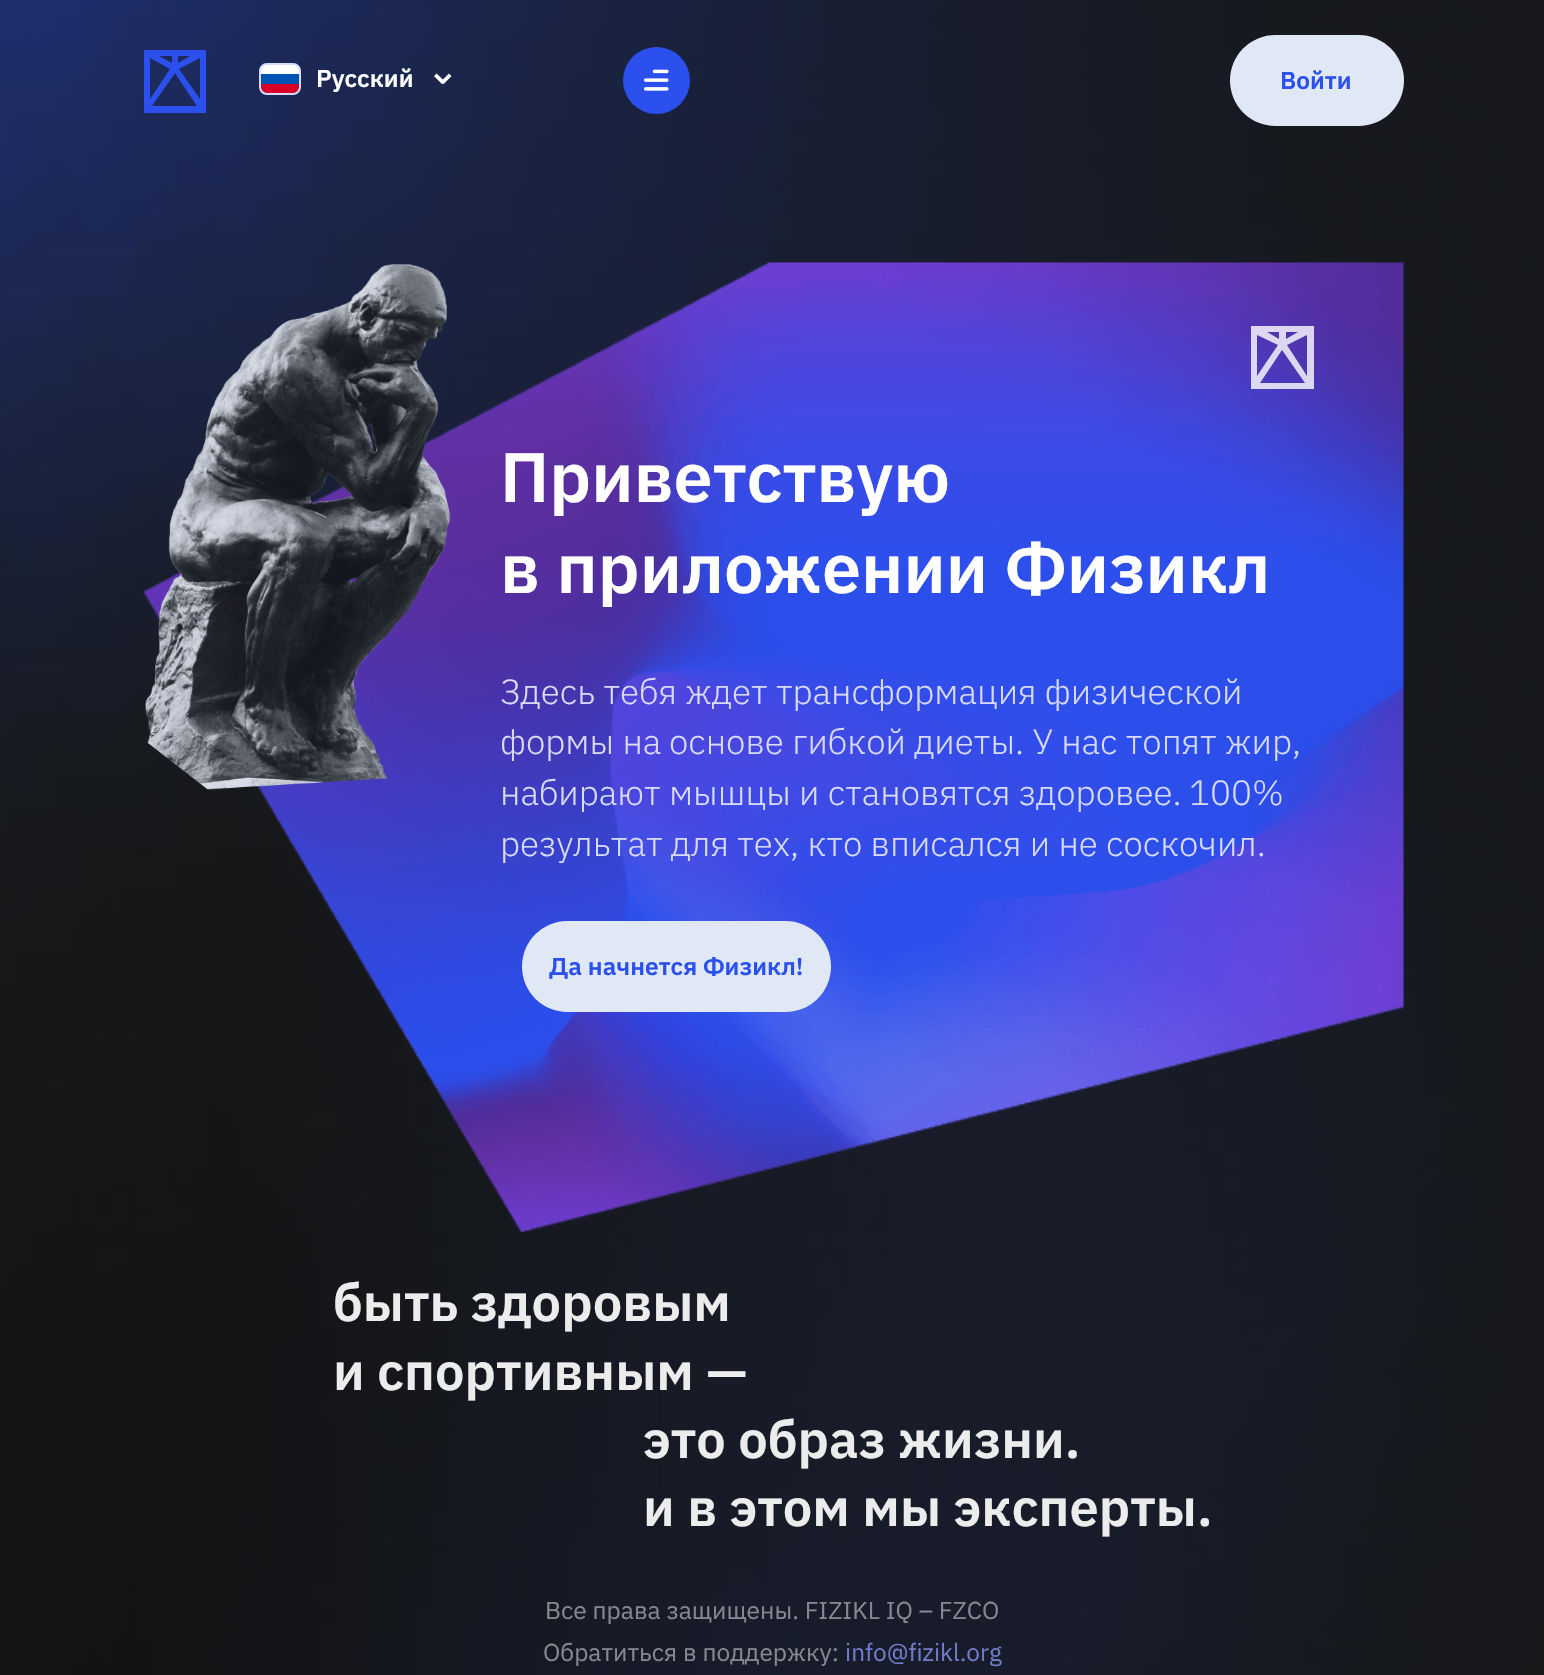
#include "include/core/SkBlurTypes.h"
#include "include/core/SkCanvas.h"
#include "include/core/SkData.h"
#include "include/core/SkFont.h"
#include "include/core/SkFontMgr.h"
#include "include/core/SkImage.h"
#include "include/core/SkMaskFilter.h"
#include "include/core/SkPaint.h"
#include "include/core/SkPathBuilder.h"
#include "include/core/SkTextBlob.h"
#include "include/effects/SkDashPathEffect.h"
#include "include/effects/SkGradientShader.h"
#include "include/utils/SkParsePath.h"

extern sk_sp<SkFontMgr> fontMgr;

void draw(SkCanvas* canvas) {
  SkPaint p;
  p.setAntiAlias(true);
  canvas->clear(SK_ColorWHITE);
  canvas->drawImageRect(SkImages::DeferredFromEncodedData(SkData::MakeFromFileName("images/1.png")), SkRect::MakeLTRB(0, 0, 1544, 1675), SkSamplingOptions());
  p.setColor(SkColorSetRGB(43, 80, 237));
  canvas->drawPath(SkPathBuilder().moveTo(206, 50).lineTo(144, 50).lineTo(144, 113).lineTo(206, 113).close().moveTo(172, 63).lineTo(159, 56).lineTo(172, 56).close().moveTo(178, 63).lineTo(178, 56).lineTo(190, 56).close().moveTo(150, 99).lineTo(150, 58).lineTo(170, 69).close().moveTo(200, 99).lineTo(179, 69).lineTo(200, 58).close().moveTo(197, 106).lineTo(152, 106).lineTo(175, 73).close().detach(), p);
  p.setColor(SkColorSetRGB(0, 82, 180));
  canvas->drawRect(SkRect::MakeLTRB(261, 74, 299, 84), p);
  p.setColor(SK_ColorWHITE);
  canvas->drawPath(SkPathBuilder().moveTo(267, 64).lineTo(293, 64).cubicTo(297, 64, 300, 67, 300, 71).lineTo(300, 74).lineTo(260, 74).lineTo(260, 71).cubicTo(260, 67, 263, 64, 267, 64).close().detach(), p);
  p.setColor(SkColorSetRGB(216, 0, 39));
  canvas->drawPath(SkPathBuilder().moveTo(260, 84).lineTo(300, 84).lineTo(300, 87).cubicTo(300, 91, 297, 94, 293, 94).lineTo(267, 94).cubicTo(263, 94, 260, 91, 260, 87).close().detach(), p);
  p.setStyle(SkPaint::kStroke_Style);
  p.setStrokeWidth(2);
  p.setColor(SkColorSetRGB(214, 220, 255));
  canvas->drawRoundRect(SkRect::MakeLTRB(260, 64, 300, 94), 7, 7, p);
  canvas->drawImageRect(SkImages::DeferredFromEncodedData(SkData::MakeFromFileName("images/2.png")), SkRect::MakeLTRB(434, 73, 452, 84), SkSamplingOptions());
  p.setStyle(SkPaint::kFill_Style);
  p.setColor(SkColorSetRGB(43, 80, 237));
  canvas->drawCircle(656.5f, 80.5f, 33.5f, p);
  canvas->drawImageRect(SkImages::DeferredFromEncodedData(SkData::MakeFromFileName("images/3.png")), SkRect::MakeLTRB(644, 69, 669, 91), SkSamplingOptions());
  p.setColor(SkColorSetRGB(224, 232, 246));
  canvas->drawRoundRect(SkRect::MakeLTRB(1230, 35, 1404, 126), 45.5f, 45.5f, p);
  canvas->drawImageRect(SkImages::DeferredFromEncodedData(SkData::MakeFromFileName("images/5.png")), SkRect::MakeLTRB(143, 262, 1404, 1232), SkSamplingOptions());
  canvas->drawImageRect(SkImages::DeferredFromEncodedData(SkData::MakeFromFileName("images/4.png")), SkRect::MakeLTRB(145, 264, 451, 790), SkSamplingOptions());
  p.setColor(SkColorSetARGB(204, 255, 255, 255));
  canvas->drawPath(SkPathBuilder().moveTo(1314, 326).lineTo(1251, 326).lineTo(1251, 389).lineTo(1314, 389).close().moveTo(1279, 339).lineTo(1267, 332).lineTo(1279, 332).close().moveTo(1286, 339).lineTo(1286, 332).lineTo(1298, 332).close().moveTo(1257, 376).lineTo(1257, 335).lineTo(1278, 345).close().moveTo(1307, 376).lineTo(1287, 345).lineTo(1307, 335).close().moveTo(1305, 383).lineTo(1260, 383).lineTo(1282, 350).close().detach(), p);
  p.setColor(SkColorSetRGB(224, 232, 246));
  canvas->drawRoundRect(SkRect::MakeLTRB(522, 921, 831, 1012), 45.5f, 45.5f, p);
  SkFont font1(fontMgr->matchFamilyStyle("IBM Plex Sans", SkFontStyle(600, SkFontStyle::kNormal_Width, SkFontStyle::kUpright_Slant)), 24.5f);
  font1.setSubpixel(true);
  p.setColor(SK_ColorWHITE);
  canvas->drawString("Русский", 316, 87, font1, p);
  p.setColor(SkColorSetRGB(43, 80, 237));
  canvas->drawString("Войти", 1280, 89, font1, p);
  SkFont font2(fontMgr->matchFamilyStyle("IBM Plex Sans", SkFontStyle(600, SkFontStyle::kNormal_Width, SkFontStyle::kUpright_Slant)), 70);
  font2.setSubpixel(true);
  p.setColor(SK_ColorWHITE);
  canvas->drawString("Приветствую", 500, 502, font2, p);
  canvas->drawString("в приложении Физикл", 500, 593, font2, p);
  SkFont font3(fontMgr->matchFamilyStyle("IBM Plex Sans", SkFontStyle(300, SkFontStyle::kNormal_Width, SkFontStyle::kUpright_Slant)), 35);
  font3.setSubpixel(true);
  p.setColor(SkColorSetRGB(215, 218, 249));
  canvas->drawString("Здесь тебя ждет трансформация физической", 500, 704, font3, p);
  p.setColor(SkColorSetRGB(218, 216, 243));
  canvas->drawString("формы на", 500, 754, font3, p);
  p.setColor(SkColorSetRGB(215, 218, 249));
  canvas->drawString("основе гибкой диеты. У нас топят жир,", 669, 754, font3, p);
  canvas->drawString("набирают мышцы и становятся здоровее.", 500, 805, font3, p);
  canvas->drawString("100%", 1189, 805, font3, p);
  canvas->drawString("результат для тех, кто вписался и не соскочил.", 500, 856, font3, p);
  p.setColor(SkColorSetRGB(43, 80, 237));
  canvas->drawString("Да начнется Физикл!", 549, 975, font1, p);
  SkFont font4(fontMgr->matchFamilyStyle("IBM Plex Sans", SkFontStyle(600, SkFontStyle::kNormal_Width, SkFontStyle::kUpright_Slant)), 52.5f);
  font4.setSubpixel(true);
  p.setColor(SkColorSetRGB(236, 236, 236));
  canvas->drawString("быть здоровым", 333, 1321, font4, p);
  canvas->drawString("и спортивным —", 333, 1390, font4, p);
  canvas->drawString("это образ жизни.", 643, 1458, font4, p);
  canvas->drawString("и в этом мы эксперты.", 643, 1526, font4, p);
  SkFont font5(fontMgr->matchFamilyStyle("IBM Plex Sans", SkFontStyle::Normal()), 24.5f);
  font5.setSubpixel(true);
  p.setColor(SkColorSetRGB(135, 136, 143));
  canvas->drawString("Все права защищены. FIZIKL IQ – FZCO", 545, 1619, font5, p);
  canvas->drawString("Обратиться в поддержку:", 543, 1661, font5, p);
  p.setColor(SkColorSetRGB(110, 124, 201));
  canvas->drawString("info@fizikl.org", 845, 1661, font5, p);
}
